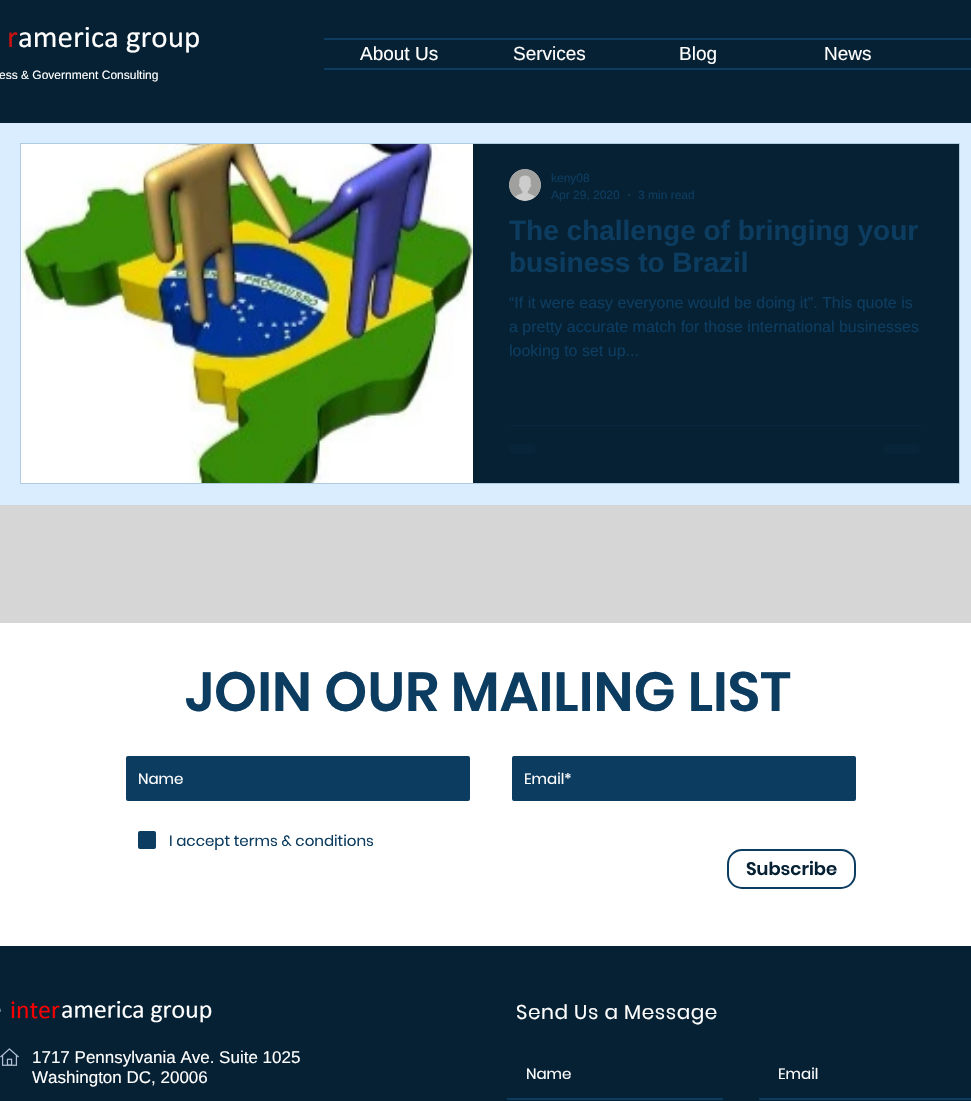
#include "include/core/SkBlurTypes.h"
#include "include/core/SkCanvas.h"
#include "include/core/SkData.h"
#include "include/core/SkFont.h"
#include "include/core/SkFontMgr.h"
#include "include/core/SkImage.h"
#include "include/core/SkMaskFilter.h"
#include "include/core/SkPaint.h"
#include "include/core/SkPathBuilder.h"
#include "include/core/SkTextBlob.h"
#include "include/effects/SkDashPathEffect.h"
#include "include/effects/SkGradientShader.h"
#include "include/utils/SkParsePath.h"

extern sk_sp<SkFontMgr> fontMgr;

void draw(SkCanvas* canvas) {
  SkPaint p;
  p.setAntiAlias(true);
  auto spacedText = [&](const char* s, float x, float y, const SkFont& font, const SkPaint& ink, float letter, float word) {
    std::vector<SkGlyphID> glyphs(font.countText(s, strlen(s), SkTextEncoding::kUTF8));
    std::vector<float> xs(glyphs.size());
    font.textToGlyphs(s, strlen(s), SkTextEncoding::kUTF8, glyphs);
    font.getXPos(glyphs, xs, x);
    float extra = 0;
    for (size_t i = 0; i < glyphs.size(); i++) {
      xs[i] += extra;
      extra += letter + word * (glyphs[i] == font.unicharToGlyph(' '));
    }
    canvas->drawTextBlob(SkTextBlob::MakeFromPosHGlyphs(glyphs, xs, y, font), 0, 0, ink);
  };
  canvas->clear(SkColorSetRGB(6, 33, 52));
  p.setColor(SkColorSetRGB(12, 60, 96));
  canvas->drawRect(SkRect::MakeLTRB(324, 38, 971, 40), p);
  canvas->drawRect(SkRect::MakeLTRB(324, 68, 971, 70), p);
  p.setColor(SkColorSetRGB(218, 237, 255));
  canvas->drawRect(SkRect::MakeLTRB(0, 123, 971, 505), p);
  p.setStyle(SkPaint::kStroke_Style);
  p.setStrokeWidth(1);
  p.setColor(SkColorSetRGB(175, 203, 224));
  canvas->drawRect(SkRect::MakeLTRB(20.5f, 143.5f, 959.5f, 483.5f), p);
  canvas->drawImageRect(SkImages::DeferredFromEncodedData(SkData::MakeFromFileName("images/1.png")), SkRect::MakeLTRB(21, 144, 473, 483), SkSamplingOptions());
  p.setStyle(SkPaint::kFill_Style);
  p.setColor(SkColorSetRGB(6, 33, 52));
  canvas->drawRect(SkRect::MakeLTRB(473, 144, 959, 483), p);
  canvas->drawImageRect(SkImages::DeferredFromEncodedData(SkData::MakeFromFileName("images/2.png")), SkRect::MakeLTRB(509, 169, 541, 201), SkSamplingOptions());
  p.setColor(SkColorSetRGB(12, 60, 96));
  canvas->drawCircle(629, 195, 1, p);
  p.setColor(SkColorSetRGB(7, 38, 61));
  canvas->drawRect(SkRect::MakeLTRB(509, 425, 923, 426), p);
  p.setColor(SkColorSetRGB(7, 36, 57));
  canvas->drawRoundRect(SkRect::MakeLTRB(509, 444, 536, 454), 5, 5, p);
  canvas->drawRoundRect(SkRect::MakeLTRB(883, 444, 920, 454), 5, 5, p);
  p.setColor(SkColorSetRGB(214, 214, 214));
  canvas->drawRect(SkRect::MakeLTRB(0, 505, 971, 623), p);
  p.setColor(SK_ColorWHITE);
  canvas->drawRect(SkRect::MakeLTRB(0, 623, 971, 946), p);
  p.setColor(SkColorSetRGB(12, 60, 96));
  canvas->drawRoundRect(SkRect::MakeLTRB(126, 756, 470, 801), 2, 2, p);
  canvas->drawRoundRect(SkRect::MakeLTRB(512, 756, 856, 801), 2, 2, p);
  canvas->drawRoundRect(SkRect::MakeLTRB(138, 831, 156, 849), 2, 2, p);
  p.setStyle(SkPaint::kStroke_Style);
  p.setStrokeWidth(2);
  canvas->drawRoundRect(SkRect::MakeLTRB(728, 850, 855, 888), 14, 14, p);
  canvas->drawImageRect(SkImages::DeferredFromEncodedData(SkData::MakeFromFileName("images/3.png")), SkRect::MakeLTRB(0, 1001, 212, 1023), SkSamplingOptions());
  canvas->drawImageRect(SkImages::DeferredFromEncodedData(SkData::MakeFromFileName("images/4.png")), SkRect::MakeLTRB(0, 1048, 19, 1066), SkSamplingOptions());
  p.setStyle(SkPaint::kFill_Style);
  canvas->drawRect(SkRect::MakeLTRB(507, 1098, 723, 1100), p);
  canvas->drawRect(SkRect::MakeLTRB(759, 1098, 971, 1100), p);
  SkFont font1(fontMgr->matchFamilyStyle("Calibri", SkFontStyle::Normal()), 31);
  font1.setSubpixel(true);
  p.setColor(SkColorSetRGB(199, 18, 18));
  canvas->drawString("r", 7, 47, font1, p);
  p.setColor(SK_ColorWHITE);
  canvas->drawString("america group", 18, 47, font1, p);
  SkFont font2(fontMgr->matchFamilyStyle("Liberation Sans", SkFontStyle::Normal()), 12);
  font2.setSubpixel(true);
  canvas->drawString("ess & Government Consulting", -1, 79, font2, p);
  SkFont font3(fontMgr->matchFamilyStyle("Liberation Sans", SkFontStyle::Normal()), 19);
  font3.setSubpixel(true);
  canvas->drawString("About Us", 360, 60, font3, p);
  canvas->drawString("Services", 513, 60, font3, p);
  canvas->drawString("Blog", 679, 60, font3, p);
  canvas->drawString("News", 824, 60, font3, p);
  p.setColor(SkColorSetRGB(12, 60, 96));
  canvas->drawString("keny08", 551, 182, font2, p);
  canvas->drawString("Apr 29, 2020", 551, 199, font2, p);
  canvas->drawString("3 min read", 638, 199, font2, p);
  SkFont font4(fontMgr->matchFamilyStyle("Liberation Sans", SkFontStyle::Bold()), 28);
  font4.setSubpixel(true);
  canvas->drawString("The challenge of bringing your", 509, 240, font4, p);
  canvas->drawString("business to Brazil", 509, 272, font4, p);
  SkFont font5(fontMgr->matchFamilyStyle("Liberation Sans", SkFontStyle::Normal()), 16);
  font5.setSubpixel(true);
  canvas->drawString("“If it were easy everyone would be doing it”. This quote is", 509, 308, font5, p);
  canvas->drawString("a pretty accurate match for those international businesses", 509, 332, font5, p);
  canvas->drawString("looking to set up...", 509, 356, font5, p);
  SkFont font6(fontMgr->matchFamilyStyle("Poppins", SkFontStyle(600, SkFontStyle::kNormal_Width, SkFontStyle::kUpright_Slant)), 55);
  font6.setSubpixel(true);
  canvas->drawString("JOIN OUR MAILING LIST", 185, 711, font6, p);
  SkFont font7(fontMgr->matchFamilyStyle("Poppins", SkFontStyle::Normal()), 15);
  font7.setSubpixel(true);
  p.setColor(SK_ColorWHITE);
  canvas->drawString("Name", 138, 784, font7, p);
  canvas->drawString("Email*", 524, 784, font7, p);
  p.setColor(SkColorSetRGB(12, 60, 96));
  canvas->drawString("I accept terms & conditions", 169, 846, font7, p);
  SkFont font8(fontMgr->matchFamilyStyle("Poppins", SkFontStyle(600, SkFontStyle::kNormal_Width, SkFontStyle::kUpright_Slant)), 18);
  font8.setSubpixel(true);
  p.setColor(SkColorSetRGB(6, 33, 52));
  canvas->drawString("Subscribe", 746, 875, font8, p);
  SkFont font9(fontMgr->matchFamilyStyle("Poppins", SkFontStyle::Normal()), 20);
  font9.setSubpixel(true);
  p.setColor(SK_ColorWHITE);
  spacedText("Send Us a Message", 516, 1019, font9, p, 0.6f, 0);
  SkFont font10(fontMgr->matchFamilyStyle("Liberation Sans", SkFontStyle::Normal()), 17);
  font10.setSubpixel(true);
  canvas->drawString("1717 Pennsylvania Ave. Suite 1025", 32, 1063, font10, p);
  canvas->drawString("Washington DC, 20006", 32, 1083, font10, p);
  canvas->drawString("Name", 526, 1079, font7, p);
  canvas->drawString("Email", 778, 1079, font7, p);
}
